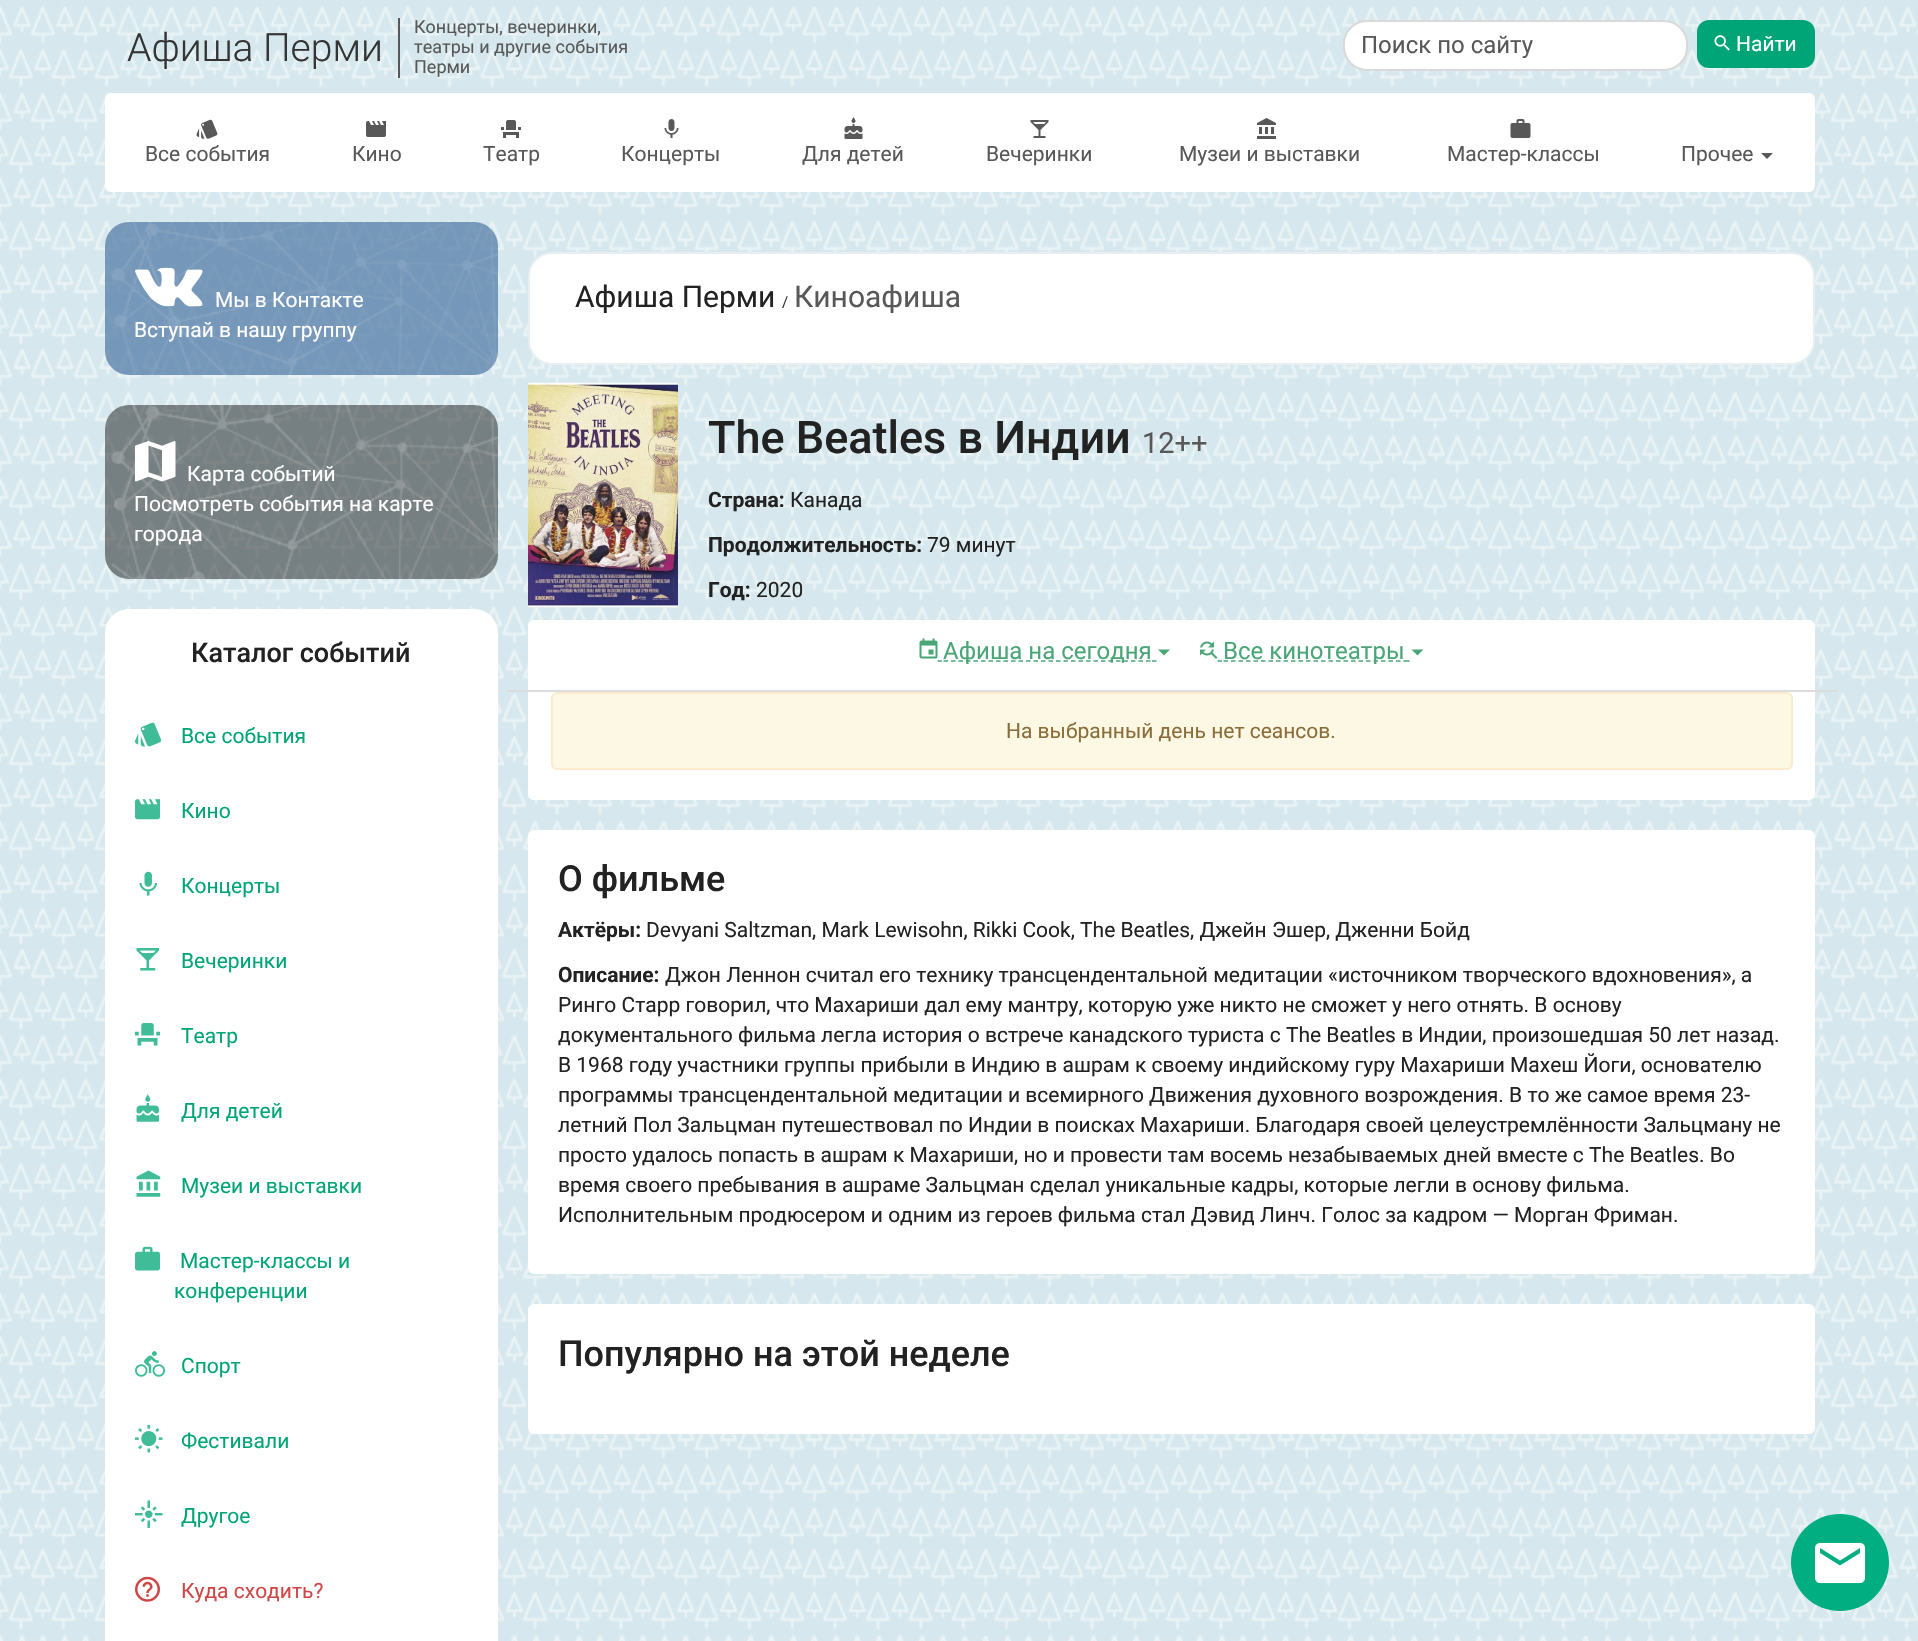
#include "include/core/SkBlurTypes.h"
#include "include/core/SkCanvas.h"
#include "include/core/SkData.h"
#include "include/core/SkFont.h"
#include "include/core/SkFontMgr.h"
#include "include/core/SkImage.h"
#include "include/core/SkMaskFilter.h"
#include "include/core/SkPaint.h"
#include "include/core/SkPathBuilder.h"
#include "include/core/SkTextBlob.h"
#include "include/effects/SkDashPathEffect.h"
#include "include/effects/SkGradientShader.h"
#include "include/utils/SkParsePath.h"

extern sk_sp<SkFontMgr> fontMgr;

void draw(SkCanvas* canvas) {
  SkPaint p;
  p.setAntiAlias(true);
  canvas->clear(SK_ColorWHITE);
  canvas->drawImageRect(SkImages::DeferredFromEncodedData(SkData::MakeFromFileName("images/1.png")), SkRect::MakeLTRB(0, 0, 1918, 1641), SkSamplingOptions());
  p.setColor(SkColorSetRGB(88, 88, 88));
  canvas->drawRect(SkRect::MakeLTRB(398, 18, 400, 78), p);
  p.setColor(SK_ColorWHITE);
  canvas->drawRoundRect(SkRect::MakeLTRB(1344, 21, 1687, 70), 23, 23, p);
  p.setStyle(SkPaint::kStroke_Style);
  p.setStrokeWidth(2);
  p.setColor(SkColorSetRGB(217, 217, 217));
  canvas->drawRoundRect(SkRect::MakeLTRB(1344, 21, 1687, 70), 23, 23, p);
  p.setStyle(SkPaint::kFill_Style);
  p.setColor(SkColorSetRGB(0, 165, 119));
  canvas->drawRoundRect(SkRect::MakeLTRB(1697, 20, 1815, 68), 12, 12, p);
  canvas->drawImageRect(SkImages::DeferredFromEncodedData(SkData::MakeFromFileName("images/2.png")), SkRect::MakeLTRB(1714, 35, 1730, 51), SkSamplingOptions());
  p.setColor(SK_ColorWHITE);
  canvas->drawRoundRect(SkRect::MakeLTRB(105, 93, 1815, 192), 6, 6, p);
  canvas->drawImageRect(SkImages::DeferredFromEncodedData(SkData::MakeFromFileName("images/3.png")), SkRect::MakeLTRB(196, 119, 218, 139), SkSamplingOptions());
  canvas->drawImageRect(SkImages::DeferredFromEncodedData(SkData::MakeFromFileName("images/4.png")), SkRect::MakeLTRB(366, 121, 386, 137), SkSamplingOptions());
  canvas->drawImageRect(SkImages::DeferredFromEncodedData(SkData::MakeFromFileName("images/5.png")), SkRect::MakeLTRB(501, 120, 521, 138), SkSamplingOptions());
  canvas->drawImageRect(SkImages::DeferredFromEncodedData(SkData::MakeFromFileName("images/6.png")), SkRect::MakeLTRB(664, 119, 679, 138), SkSamplingOptions());
  canvas->drawImageRect(SkImages::DeferredFromEncodedData(SkData::MakeFromFileName("images/7.png")), SkRect::MakeLTRB(844, 117, 863, 139), SkSamplingOptions());
  canvas->drawImageRect(SkImages::DeferredFromEncodedData(SkData::MakeFromFileName("images/8.png")), SkRect::MakeLTRB(1030, 120, 1049, 138), SkSamplingOptions());
  canvas->drawImageRect(SkImages::DeferredFromEncodedData(SkData::MakeFromFileName("images/9.png")), SkRect::MakeLTRB(1257, 118, 1276, 139), SkSamplingOptions());
  canvas->drawImageRect(SkImages::DeferredFromEncodedData(SkData::MakeFromFileName("images/10.png")), SkRect::MakeLTRB(1510, 119, 1531, 138), SkSamplingOptions());
  p.setColor(SkColorSetRGB(88, 88, 88));
  canvas->drawPath(SkPathBuilder().moveTo(1761, 153).lineTo(1773, 153).lineTo(1767, 159).close().detach(), p);
  p.setColor(SkColorSetARGB(179, 76, 117, 163));
  canvas->drawRoundRect(SkRect::MakeLTRB(105, 222, 498, 375), 24, 24, p);
  canvas->drawImageRect(SkImages::DeferredFromEncodedData(SkData::MakeFromFileName("images/11.png")), SkRect::MakeLTRB(111, 222, 498, 375), SkSamplingOptions());
  canvas->drawImageRect(SkImages::DeferredFromEncodedData(SkData::MakeFromFileName("images/12.png")), SkRect::MakeLTRB(135, 267, 203, 307), SkSamplingOptions());
  p.setColor(SkColorSetARGB(115, 0, 0, 0));
  canvas->drawRoundRect(SkRect::MakeLTRB(105, 405, 498, 579), 24, 24, p);
  canvas->drawImageRect(SkImages::DeferredFromEncodedData(SkData::MakeFromFileName("images/13.png")), SkRect::MakeLTRB(111, 405, 498, 579), SkSamplingOptions());
  canvas->drawImageRect(SkImages::DeferredFromEncodedData(SkData::MakeFromFileName("images/14.png")), SkRect::MakeLTRB(111, 405, 498, 579), SkSamplingOptions());
  canvas->drawImageRect(SkImages::DeferredFromEncodedData(SkData::MakeFromFileName("images/15.png")), SkRect::MakeLTRB(135, 441, 176, 482), SkSamplingOptions());
  p.setColor(SK_ColorWHITE);
  canvas->drawRoundRect(SkRect::MakeLTRB(105, 609, 498, 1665), 24, 24, p);
  canvas->drawImageRect(SkImages::DeferredFromEncodedData(SkData::MakeFromFileName("images/16.png")), SkRect::MakeLTRB(135, 722, 162, 747), SkSamplingOptions());
  canvas->drawImageRect(SkImages::DeferredFromEncodedData(SkData::MakeFromFileName("images/17.png")), SkRect::MakeLTRB(135, 799, 160, 820), SkSamplingOptions());
  canvas->drawImageRect(SkImages::DeferredFromEncodedData(SkData::MakeFromFileName("images/18.png")), SkRect::MakeLTRB(139, 871, 157, 896), SkSamplingOptions());
  canvas->drawImageRect(SkImages::DeferredFromEncodedData(SkData::MakeFromFileName("images/19.png")), SkRect::MakeLTRB(136, 948, 159, 971), SkSamplingOptions());
  canvas->drawImageRect(SkImages::DeferredFromEncodedData(SkData::MakeFromFileName("images/20.png")), SkRect::MakeLTRB(135, 1023, 160, 1046), SkSamplingOptions());
  canvas->drawImageRect(SkImages::DeferredFromEncodedData(SkData::MakeFromFileName("images/21.png")), SkRect::MakeLTRB(136, 1094, 159, 1122), SkSamplingOptions());
  canvas->drawImageRect(SkImages::DeferredFromEncodedData(SkData::MakeFromFileName("images/22.png")), SkRect::MakeLTRB(136, 1170, 161, 1197), SkSamplingOptions());
  canvas->drawImageRect(SkImages::DeferredFromEncodedData(SkData::MakeFromFileName("images/23.png")), SkRect::MakeLTRB(135, 1246, 160, 1271), SkSamplingOptions());
  canvas->drawImageRect(SkImages::DeferredFromEncodedData(SkData::MakeFromFileName("images/24.png")), SkRect::MakeLTRB(135, 1351, 165, 1377), SkSamplingOptions());
  canvas->drawImageRect(SkImages::DeferredFromEncodedData(SkData::MakeFromFileName("images/25.png")), SkRect::MakeLTRB(135, 1424, 163, 1453), SkSamplingOptions());
  canvas->drawImageRect(SkImages::DeferredFromEncodedData(SkData::MakeFromFileName("images/26.png")), SkRect::MakeLTRB(135, 1500, 163, 1528), SkSamplingOptions());
  canvas->drawImageRect(SkImages::DeferredFromEncodedData(SkData::MakeFromFileName("images/27.png")), SkRect::MakeLTRB(135, 1576, 160, 1602), SkSamplingOptions());
  canvas->drawRoundRect(SkRect::MakeLTRB(529, 253, 1814, 364), 23, 23, p);
  p.setStyle(SkPaint::kStroke_Style);
  p.setColor(SkColorSetRGB(232, 238, 242));
  canvas->drawRoundRect(SkRect::MakeLTRB(529, 253, 1814, 364), 23, 23, p);
  canvas->drawImageRect(SkImages::DeferredFromEncodedData(SkData::MakeFromFileName("images/28.png")), SkRect::MakeLTRB(528, 382, 678, 608), SkSamplingOptions());
  p.setStyle(SkPaint::kFill_Style);
  p.setColor(SK_ColorWHITE);
  canvas->drawPath(SkPathBuilder().moveTo(534, 620).lineTo(1809, 620).cubicTo(1812.5f, 620, 1815, 622.5f, 1815, 626).lineTo(1815, 692).lineTo(528, 692).lineTo(528, 626).cubicTo(528, 622.5f, 530.5f, 620, 534, 620).close().detach(), p);
  p.setColor(SkColorSetRGB(220, 220, 220));
  canvas->drawRect(SkRect::MakeLTRB(506, 690, 1838, 692), p);
  canvas->drawImageRect(SkImages::DeferredFromEncodedData(SkData::MakeFromFileName("images/29.png")), SkRect::MakeLTRB(919, 638, 938, 659), SkSamplingOptions());
  p.setStyle(SkPaint::kStroke_Style);
  p.setStrokeWidth(1.5f);
  p.setColor(SkColorSetRGB(75, 166, 119));
  p.setPathEffect(SkDashPathEffect::Make({{4.5f, 3}}, 0));
  canvas->drawPath(SkPathBuilder().moveTo(943.5f, 661).lineTo(1152, 661).detach(), p);
  p.setPathEffect(nullptr);
  p.setStyle(SkPaint::kFill_Style);
  canvas->drawPath(SkPathBuilder().moveTo(1158, 649.5f).lineTo(1170, 649.5f).lineTo(1164, 655.5f).close().detach(), p);
  p.setStyle(SkPaint::kStroke_Style);
  canvas->drawPath(SkPathBuilder().moveTo(937.5f, 661).lineTo(942, 661).detach(), p);
  canvas->drawPath(SkPathBuilder().moveTo(1152, 661).lineTo(1156.5f, 661).detach(), p);
  canvas->drawImageRect(SkImages::DeferredFromEncodedData(SkData::MakeFromFileName("images/30.png")), SkRect::MakeLTRB(1200, 641, 1218, 659), SkSamplingOptions());
  p.setPathEffect(SkDashPathEffect::Make({{4.5f, 3}}, 0));
  canvas->drawPath(SkPathBuilder().moveTo(1223.5f, 661).lineTo(1405, 661).detach(), p);
  p.setPathEffect(nullptr);
  p.setStyle(SkPaint::kFill_Style);
  canvas->drawPath(SkPathBuilder().moveTo(1411.5f, 649.5f).lineTo(1423.5f, 649.5f).lineTo(1417.5f, 655.5f).close().detach(), p);
  p.setStyle(SkPaint::kStroke_Style);
  canvas->drawPath(SkPathBuilder().moveTo(1217.5f, 661).lineTo(1222, 661).detach(), p);
  canvas->drawPath(SkPathBuilder().moveTo(1405, 661).lineTo(1409.5f, 661).detach(), p);
  p.setStyle(SkPaint::kFill_Style);
  p.setColor(SK_ColorWHITE);
  canvas->drawPath(SkPathBuilder().moveTo(528, 692).lineTo(1815, 692).lineTo(1815, 794).cubicTo(1815, 797.5f, 1812.5f, 800, 1809, 800).lineTo(534, 800).cubicTo(530.5f, 800, 528, 797.5f, 528, 794).close().detach(), p);
  p.setColor(SkColorSetRGB(252, 248, 227));
  canvas->drawRoundRect(SkRect::MakeLTRB(552, 693, 1792, 769), 5, 5, p);
  p.setStyle(SkPaint::kStroke_Style);
  p.setStrokeWidth(2);
  p.setColor(SkColorSetRGB(250, 235, 204));
  canvas->drawRoundRect(SkRect::MakeLTRB(552, 693, 1792, 769), 5, 5, p);
  p.setStyle(SkPaint::kFill_Style);
  p.setColor(SK_ColorWHITE);
  canvas->drawRoundRect(SkRect::MakeLTRB(528, 830, 1815, 1274), 6, 6, p);
  canvas->drawRoundRect(SkRect::MakeLTRB(528, 1304, 1815, 1434), 6, 6, p);
  p.setColor(SkColorSetRGB(0, 174, 130));
  canvas->drawRoundRect(SkRect::MakeLTRB(1791, 1514, 1889, 1611), 48.5f, 48.5f, p);
  canvas->drawImageRect(SkImages::DeferredFromEncodedData(SkData::MakeFromFileName("images/31.png")), SkRect::MakeLTRB(1815, 1542, 1866, 1584), SkSamplingOptions());
  SkFont font1(fontMgr->matchFamilyStyle("Roboto", SkFontStyle(300, SkFontStyle::kNormal_Width, SkFontStyle::kUpright_Slant)), 39);
  font1.setSubpixel(true);
  p.setColor(SkColorSetRGB(52, 52, 52));
  canvas->drawString("Афиша Перми", 127, 61, font1, p);
  SkFont font2(fontMgr->matchFamilyStyle("Roboto", SkFontStyle::Normal()), 18);
  font2.setSubpixel(true);
  p.setColor(SkColorSetRGB(88, 88, 88));
  canvas->drawString("Концерты, вечеринки,", 414, 33, font2, p);
  canvas->drawString("театры и другие события", 414, 53, font2, p);
  canvas->drawString("Перми", 414, 73, font2, p);
  SkFont font3(fontMgr->matchFamilyStyle("Roboto", SkFontStyle::Normal()), 24);
  font3.setSubpixel(true);
  canvas->drawString("Поиск по сайту", 1361, 53, font3, p);
  SkFont font4(fontMgr->matchFamilyStyle("Roboto", SkFontStyle::Normal()), 21);
  font4.setSubpixel(true);
  p.setColor(SK_ColorWHITE);
  canvas->drawString("Найти", 1736, 51, font4, p);
  p.setColor(SkColorSetRGB(88, 88, 88));
  canvas->drawString("Все события", 145, 161, font4, p);
  canvas->drawString("Кино", 352, 161, font4, p);
  canvas->drawString("Театр", 483, 161, font4, p);
  canvas->drawString("Концерты", 621, 161, font4, p);
  canvas->drawString("Для детей", 802, 161, font4, p);
  canvas->drawString("Вечеринки", 986, 161, font4, p);
  canvas->drawString("Музеи и выставки", 1179, 161, font4, p);
  canvas->drawString("Мастер-классы", 1447, 161, font4, p);
  canvas->drawString("Прочее", 1681, 161, font4, p);
  p.setColor(SK_ColorWHITE);
  canvas->drawString("Мы в Контакте", 215, 307, font4, p);
  canvas->drawString("Вступай в нашу группу", 134, 337, font4, p);
  canvas->drawString("Карта событий", 187, 481, font4, p);
  canvas->drawString("Посмотреть события на карте", 134, 511, font4, p);
  canvas->drawString("города", 134, 541, font4, p);
  SkFont font5(fontMgr->matchFamilyStyle("Roboto", SkFontStyle(500, SkFontStyle::kNormal_Width, SkFontStyle::kUpright_Slant)), 27);
  font5.setSubpixel(true);
  p.setColor(SkColorSetRGB(34, 34, 34));
  canvas->drawString("Каталог событий", 191, 662, font5, p);
  p.setColor(SkColorSetRGB(0, 165, 119));
  canvas->drawString("Все события", 181, 743, font4, p);
  canvas->drawString("Кино", 181, 818, font4, p);
  canvas->drawString("Концерты", 181, 893, font4, p);
  canvas->drawString("Вечеринки", 181, 968, font4, p);
  canvas->drawString("Театр", 181, 1043, font4, p);
  canvas->drawString("Для детей", 181, 1118, font4, p);
  canvas->drawString("Музеи и выставки", 181, 1193, font4, p);
  canvas->drawString("Мастер-классы и", 180, 1268, font4, p);
  canvas->drawString("конференции", 174, 1298, font4, p);
  canvas->drawString("Спорт", 181, 1373, font4, p);
  canvas->drawString("Фестивали", 181, 1448, font4, p);
  canvas->drawString("Другое", 181, 1523, font4, p);
  p.setColor(SkColorSetRGB(207, 70, 71));
  canvas->drawString("Куда сходить?", 181, 1598, font4, p);
  SkFont font6(fontMgr->matchFamilyStyle("Roboto", SkFontStyle::Normal()), 30);
  font6.setSubpixel(true);
  p.setColor(SkColorSetRGB(34, 34, 34));
  canvas->drawString("Афиша Перми", 575, 307, font6, p);
  SkFont font7(fontMgr->matchFamilyStyle("Roboto", SkFontStyle::Normal()), 15);
  font7.setSubpixel(true);
  p.setColor(SkColorSetRGB(52, 52, 52));
  canvas->drawString("/", 782, 307, font7, p);
  p.setColor(SkColorSetRGB(88, 88, 88));
  canvas->drawString("Киноафиша", 794, 307, font6, p);
  SkFont font8(fontMgr->matchFamilyStyle("Roboto", SkFontStyle(500, SkFontStyle::kNormal_Width, SkFontStyle::kUpright_Slant)), 45);
  font8.setSubpixel(true);
  p.setColor(SkColorSetRGB(34, 34, 34));
  canvas->drawString("The Beatles в Индии", 708, 453, font8, p);
  SkFont font9(fontMgr->matchFamilyStyle("Roboto", SkFontStyle::Normal()), 29);
  font9.setSubpixel(true);
  p.setColor(SkColorSetRGB(88, 88, 88));
  canvas->drawString("12++", 1142, 453, font9, p);
  SkFont font10(fontMgr->matchFamilyStyle("Roboto", SkFontStyle::Bold()), 21);
  font10.setSubpixel(true);
  p.setColor(SkColorSetRGB(34, 34, 34));
  canvas->drawString("Страна:", 708, 507, font10, p);
  canvas->drawString("Канада", 790, 507, font4, p);
  canvas->drawString("Продолжительность:", 708, 552, font10, p);
  canvas->drawString("79 минут", 927, 552, font4, p);
  canvas->drawString("Год:", 708, 597, font10, p);
  canvas->drawString("2020", 756, 597, font4, p);
  p.setColor(SkColorSetRGB(75, 166, 119));
  canvas->drawString("Афиша на сегодня", 943, 659, font3, p);
  canvas->drawString("Все кинотеатры", 1223, 659, font3, p);
  p.setColor(SkColorSetRGB(138, 109, 59));
  canvas->drawString("На выбранный день нет сеансов.", 1006, 738, font4, p);
  SkFont font11(fontMgr->matchFamilyStyle("Roboto", SkFontStyle(500, SkFontStyle::kNormal_Width, SkFontStyle::kUpright_Slant)), 36);
  font11.setSubpixel(true);
  p.setColor(SkColorSetRGB(34, 34, 34));
  canvas->drawString("О фильме", 558, 891, font11, p);
  canvas->drawString("Актёры:", 558, 937, font10, p);
  canvas->drawString("Devyani Saltzman, Mark Lewisohn, Rikki Cook, The Beatles, Джейн Эшер, Дженни Бойд", 646, 937, font4, p);
  canvas->drawString("Описание:", 558, 982, font10, p);
  canvas->drawString("Джон Леннон считал его технику трансцендентальной медитации «источником творческого вдохновения», а", 665, 982, font4, p);
  canvas->drawString("Ринго Старр говорил, что Махариши дал ему мантру, которую уже никто не сможет у него отнять. В основу", 558, 1012, font4, p);
  canvas->drawString("документального фильма легла история о встрече канадского туриста с The Beatles в Индии, произошедшая 50 лет назад.", 558, 1042, font4, p);
  canvas->drawString("В 1968 году участники группы прибыли в Индию в ашрам к своему индийскому гуру Махариши Махеш Йоги, основателю", 558, 1072, font4, p);
  canvas->drawString("программы трансцендентальной медитации и всемирного Движения духовного возрождения. В то же самое время 23-", 558, 1102, font4, p);
  canvas->drawString("летний Пол Зальцман путешествовал по Индии в поисках Махариши. Благодаря своей целеустремлённости Зальцману не", 558, 1132, font4, p);
  canvas->drawString("просто удалось попасть в ашрам к Махариши, но и провести там восемь незабываемых дней вместе с The Beatles. Во", 558, 1162, font4, p);
  canvas->drawString("время своего пребывания в ашраме Зальцман сделал уникальные кадры, которые легли в основу фильма.", 558, 1192, font4, p);
  canvas->drawString("Исполнительным продюсером и одним из героев фильма стал Дэвид Линч. Голос за кадром — Морган Фриман.", 558, 1222, font4, p);
  canvas->drawString("Популярно на этой неделе", 558, 1366, font11, p);
}
